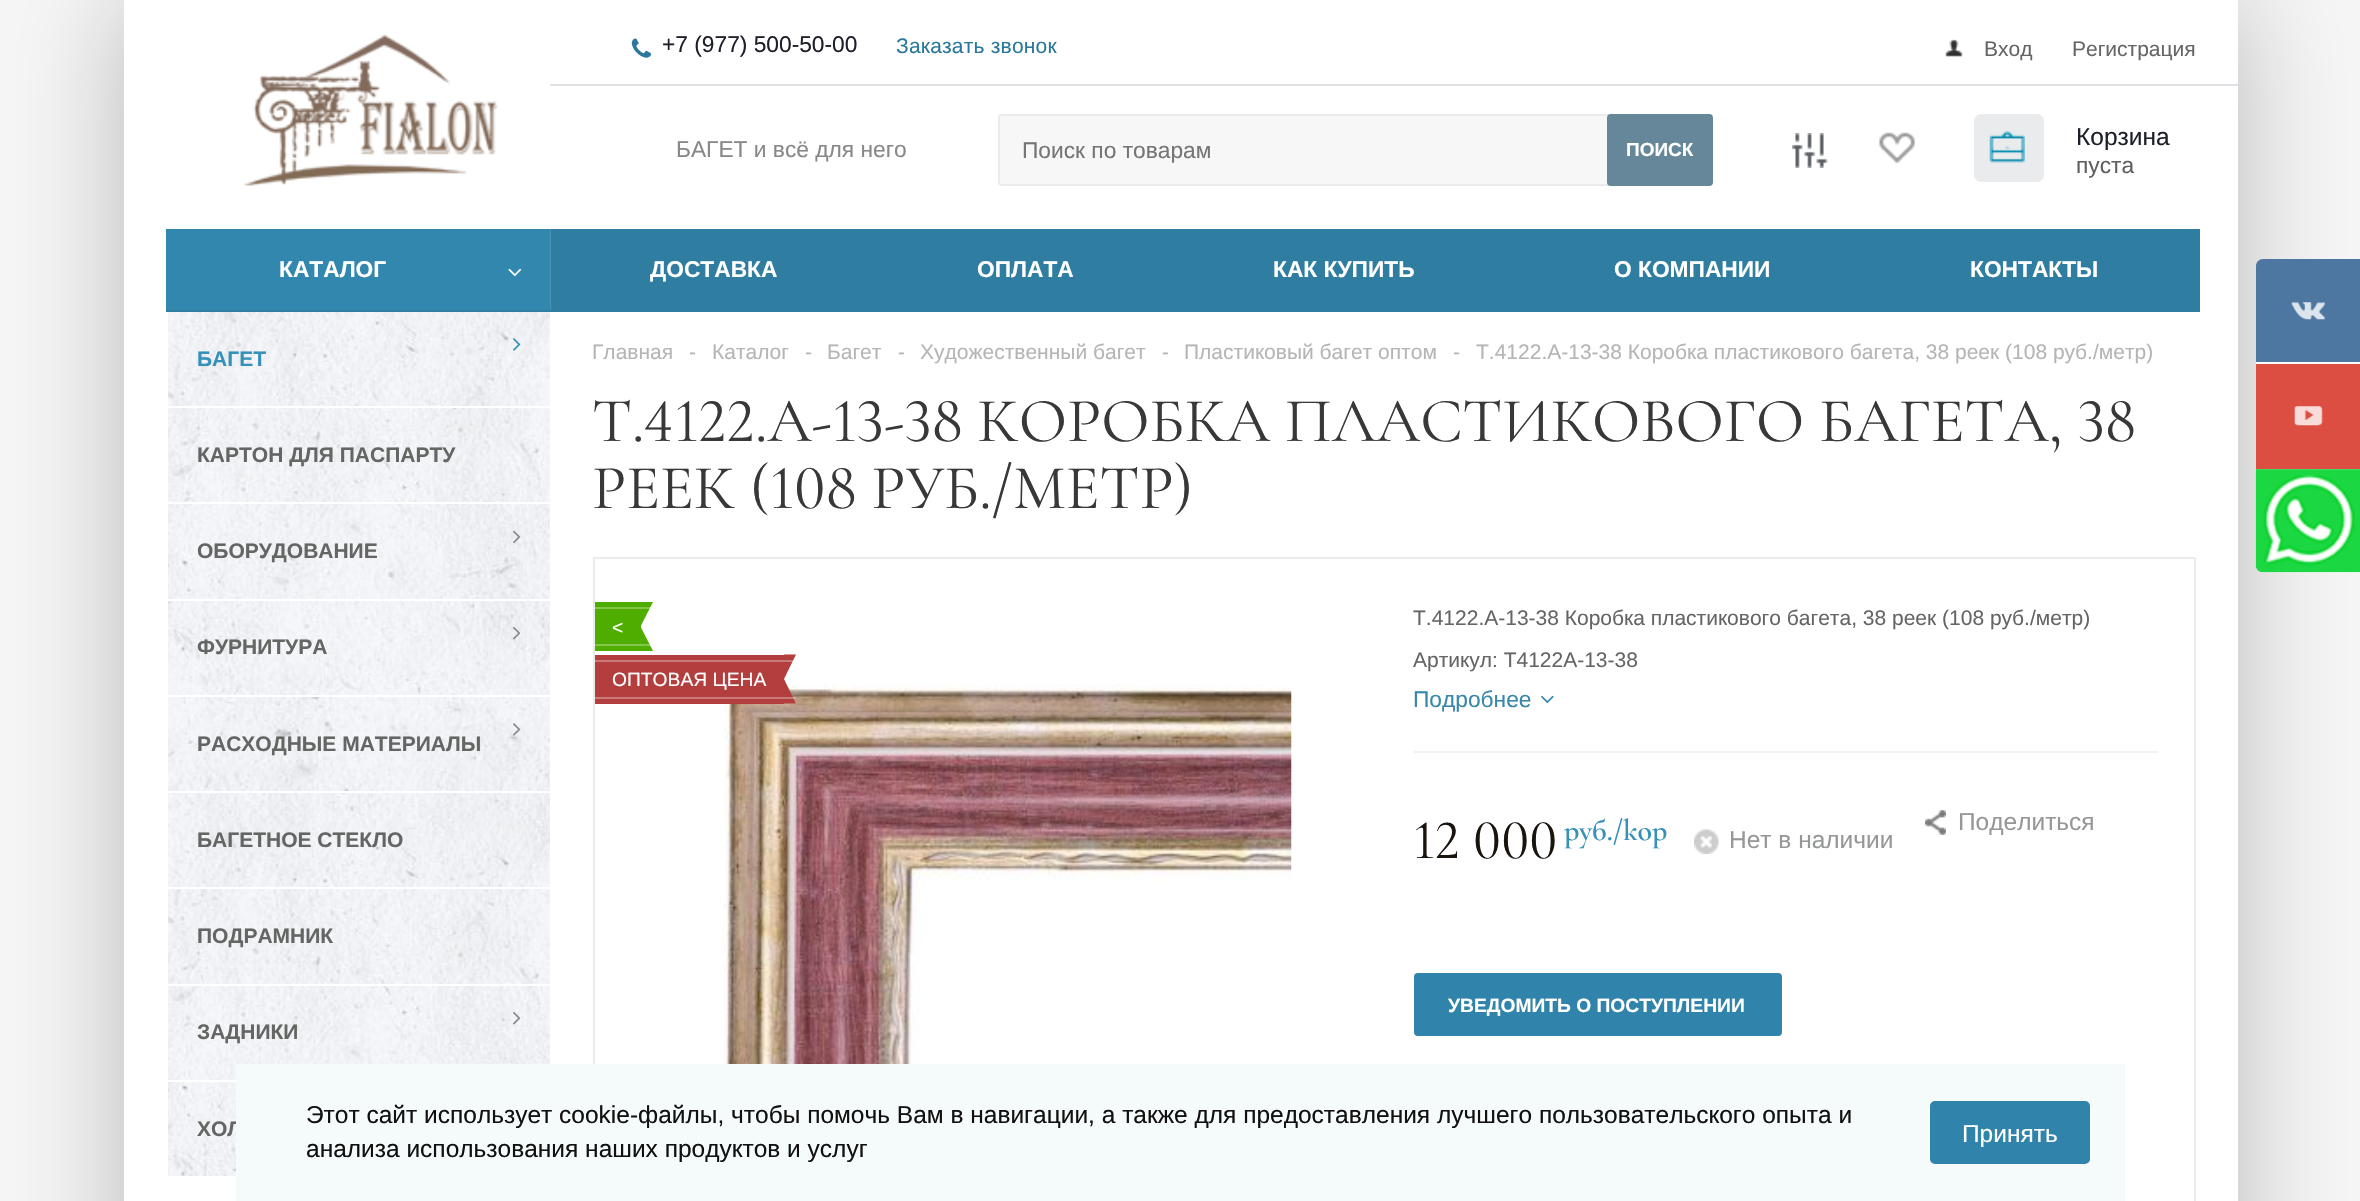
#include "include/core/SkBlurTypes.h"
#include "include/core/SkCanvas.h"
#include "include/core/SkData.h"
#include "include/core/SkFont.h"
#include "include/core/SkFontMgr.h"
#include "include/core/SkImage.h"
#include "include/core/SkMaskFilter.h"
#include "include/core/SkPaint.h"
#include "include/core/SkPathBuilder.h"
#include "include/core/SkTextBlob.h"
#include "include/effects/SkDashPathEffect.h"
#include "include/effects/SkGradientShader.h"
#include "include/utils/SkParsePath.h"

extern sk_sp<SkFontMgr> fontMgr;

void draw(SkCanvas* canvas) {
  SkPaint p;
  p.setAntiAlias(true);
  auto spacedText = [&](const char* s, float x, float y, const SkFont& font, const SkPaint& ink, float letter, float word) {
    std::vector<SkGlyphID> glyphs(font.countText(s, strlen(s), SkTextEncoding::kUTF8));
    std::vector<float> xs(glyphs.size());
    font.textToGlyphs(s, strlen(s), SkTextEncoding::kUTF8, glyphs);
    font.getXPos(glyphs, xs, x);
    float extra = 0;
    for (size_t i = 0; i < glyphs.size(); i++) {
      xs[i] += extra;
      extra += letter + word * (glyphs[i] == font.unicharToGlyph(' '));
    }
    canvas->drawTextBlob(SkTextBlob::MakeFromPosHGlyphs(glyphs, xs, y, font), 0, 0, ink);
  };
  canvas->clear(SkColorSetRGB(246, 246, 247));
  p.setColor(SkColorSetARGB(64, 0, 0, 0));
  p.setMaskFilter(SkMaskFilter::MakeBlur(kNormal_SkBlurStyle, 52.5f));
  canvas->drawRect(SkRect::MakeLTRB(124, 0, 2238, 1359), p);
  p.setMaskFilter(nullptr);
  p.setColor(SK_ColorWHITE);
  canvas->drawRect(SkRect::MakeLTRB(124, 0, 2238, 1201), p);
  p.setColor(SkColorSetRGB(223, 226, 230));
  canvas->drawRect(SkRect::MakeLTRB(550, 84, 2238, 86), p);
  canvas->drawImageRect(SkImages::DeferredFromEncodedData(SkData::MakeFromFileName("images/1.png")), SkRect::MakeLTRB(631, 38, 651, 58), SkSamplingOptions());
  canvas->drawImageRect(SkImages::DeferredFromEncodedData(SkData::MakeFromFileName("images/2.png")), SkRect::MakeLTRB(1945, 39, 1963, 57), SkSamplingOptions());
  canvas->drawImageRect(SkImages::DeferredFromEncodedData(SkData::MakeFromFileName("images/3.png")), SkRect::MakeLTRB(243, 35, 498, 186), SkSamplingOptions());
  p.setColor(SkColorSetRGB(247, 247, 247));
  canvas->drawRoundRect(SkRect::MakeLTRB(999, 115, 1712, 185), 3, 3, p);
  p.setStyle(SkPaint::kStroke_Style);
  p.setStrokeWidth(2);
  p.setColor(SkColorSetRGB(234, 235, 236));
  canvas->drawRoundRect(SkRect::MakeLTRB(999, 115, 1712, 185), 3, 3, p);
  p.setStyle(SkPaint::kFill_Style);
  p.setColor(SkColorSetRGB(101, 135, 153));
  canvas->drawRoundRect(SkRect::MakeLTRB(1607, 114, 1713, 186), 4, 4, p);
  canvas->drawImageRect(SkImages::DeferredFromEncodedData(SkData::MakeFromFileName("images/4.png")), SkRect::MakeLTRB(1792, 133, 1828, 168), SkSamplingOptions());
  canvas->drawImageRect(SkImages::DeferredFromEncodedData(SkData::MakeFromFileName("images/5.png")), SkRect::MakeLTRB(1879, 132, 1915, 164), SkSamplingOptions());
  p.setColor(SkColorSetRGB(234, 235, 236));
  canvas->drawRoundRect(SkRect::MakeLTRB(1974, 114, 2044, 182), 7, 7, p);
  canvas->drawImageRect(SkImages::DeferredFromEncodedData(SkData::MakeFromFileName("images/6.png")), SkRect::MakeLTRB(1989, 131, 2025, 163), SkSamplingOptions());
  p.setColor(SkColorSetRGB(47, 126, 162));
  canvas->drawRect(SkRect::MakeLTRB(166, 229, 2200, 312), p);
  p.setColor(SkColorSetRGB(50, 135, 174));
  canvas->drawRect(SkRect::MakeLTRB(166, 229, 550, 310), p);
  p.setColor(SkColorSetRGB(71, 147, 182));
  canvas->drawRect(SkRect::MakeLTRB(550, 229, 551, 310), p);
  canvas->drawImageRect(SkImages::DeferredFromEncodedData(SkData::MakeFromFileName("images/7.png")), SkRect::MakeLTRB(508, 268, 522, 277), SkSamplingOptions());
  canvas->drawImageRect(SkImages::DeferredFromEncodedData(SkData::MakeFromFileName("images/8.png")), SkRect::MakeLTRB(168, 312, 550, 1176), SkSamplingOptions());
  canvas->drawImageRect(SkImages::DeferredFromEncodedData(SkData::MakeFromFileName("images/9.png")), SkRect::MakeLTRB(513, 338, 521, 351), SkSamplingOptions());
  p.setColor(SK_ColorWHITE);
  canvas->drawRect(SkRect::MakeLTRB(166, 406, 551, 408), p);
  canvas->drawRect(SkRect::MakeLTRB(166, 502, 551, 504), p);
  canvas->drawImageRect(SkImages::DeferredFromEncodedData(SkData::MakeFromFileName("images/10.png")), SkRect::MakeLTRB(513, 530, 521, 544), SkSamplingOptions());
  canvas->drawRect(SkRect::MakeLTRB(166, 599, 551, 601), p);
  canvas->drawImageRect(SkImages::DeferredFromEncodedData(SkData::MakeFromFileName("images/11.png")), SkRect::MakeLTRB(513, 627, 521, 640), SkSamplingOptions());
  canvas->drawRect(SkRect::MakeLTRB(166, 695, 551, 697), p);
  canvas->drawImageRect(SkImages::DeferredFromEncodedData(SkData::MakeFromFileName("images/12.png")), SkRect::MakeLTRB(513, 723, 521, 736), SkSamplingOptions());
  canvas->drawRect(SkRect::MakeLTRB(166, 791, 551, 793), p);
  canvas->drawRect(SkRect::MakeLTRB(166, 887, 551, 889), p);
  canvas->drawRect(SkRect::MakeLTRB(166, 984, 551, 986), p);
  canvas->drawImageRect(SkImages::DeferredFromEncodedData(SkData::MakeFromFileName("images/13.png")), SkRect::MakeLTRB(513, 1012, 521, 1025), SkSamplingOptions());
  p.setStyle(SkPaint::kStroke_Style);
  canvas->drawRect(SkRect::MakeLTRB(167, 1081, 550, 1177), p);
  p.setColor(SkColorSetRGB(234, 235, 236));
  canvas->drawRect(SkRect::MakeLTRB(594, 558, 2195, 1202), p);
  p.setStyle(SkPaint::kFill_Style);
  p.setColor(SkColorSetRGB(79, 173, 0));
  canvas->drawRect(SkRect::MakeLTRB(595, 602, 641, 651), p);
  canvas->drawPath(SkPathBuilder().moveTo(640.5f, 602).lineTo(653, 602).lineTo(640.5f, 626.5f).close().detach(), p);
  p.setColor(SkColorSetARGB(77, 255, 255, 255));
  canvas->drawRect(SkRect::MakeLTRB(595, 607, 653, 609), p);
  p.setColor(SkColorSetRGB(79, 173, 0));
  canvas->drawPath(SkPathBuilder().moveTo(653, 651).lineTo(640.5f, 651).lineTo(640.5f, 626.5f).close().detach(), p);
  p.setColor(SkColorSetARGB(77, 255, 255, 255));
  canvas->drawRect(SkRect::MakeLTRB(595, 644, 653, 646), p);
  canvas->drawImageRect(SkImages::DeferredFromEncodedData(SkData::MakeFromFileName("images/14.png")), SkRect::MakeLTRB(723, 684, 1292, 1064), SkSamplingOptions());
  p.setColor(SkColorSetRGB(179, 62, 62));
  canvas->drawRect(SkRect::MakeLTRB(595, 655, 784, 704), p);
  canvas->drawPath(SkPathBuilder().moveTo(784, 654.5f).lineTo(796, 654.5f).lineTo(784, 679).close().moveTo(796, 703.5f).lineTo(784, 703.5f).lineTo(784, 679).close().detach(), p);
  p.setColor(SkColorSetARGB(77, 255, 255, 255));
  canvas->drawRect(SkRect::MakeLTRB(595, 660, 796, 662), p);
  canvas->drawRect(SkRect::MakeLTRB(595, 697, 796, 699), p);
  p.setColor(SkColorSetRGB(242, 242, 242));
  canvas->drawRect(SkRect::MakeLTRB(1414, 751, 2158, 753), p);
  canvas->drawImageRect(SkImages::DeferredFromEncodedData(SkData::MakeFromFileName("images/15.png")), SkRect::MakeLTRB(1541, 695, 1554, 704), SkSamplingOptions());
  canvas->drawImageRect(SkImages::DeferredFromEncodedData(SkData::MakeFromFileName("images/16.png")), SkRect::MakeLTRB(1694, 829, 1719, 854), SkSamplingOptions());
  canvas->drawImageRect(SkImages::DeferredFromEncodedData(SkData::MakeFromFileName("images/17.png")), SkRect::MakeLTRB(1925, 810, 1946, 835), SkSamplingOptions());
  p.setColor(SkColorSetRGB(48, 132, 171));
  canvas->drawRoundRect(SkRect::MakeLTRB(1414, 973, 1782, 1036), 4, 4, p);
  p.setColor(SK_ColorWHITE);
  canvas->drawRect(SkRect::MakeLTRB(2256, 362, 2360, 364), p);
  p.setColor(SkColorSetRGB(77, 118, 161));
  canvas->drawPath(SkPathBuilder().moveTo(2263, 259).lineTo(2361, 259).lineTo(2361, 362).lineTo(2256, 362).lineTo(2256, 266).cubicTo(2256, 262, 2259, 259, 2263, 259).close().detach(), p);
  canvas->drawImageRect(SkImages::DeferredFromEncodedData(SkData::MakeFromFileName("images/18.png")), SkRect::MakeLTRB(2291, 302, 2325, 320), SkSamplingOptions());
  p.setColor(SkColorSetRGB(220, 78, 65));
  canvas->drawRect(SkRect::MakeLTRB(2256, 364, 2360, 469), p);
  canvas->drawImageRect(SkImages::DeferredFromEncodedData(SkData::MakeFromFileName("images/19.png")), SkRect::MakeLTRB(2294, 406, 2323, 426), SkSamplingOptions());
  canvas->drawImageRect(SkImages::DeferredFromEncodedData(SkData::MakeFromFileName("images/20.png")), SkRect::MakeLTRB(2255, 469, 2360, 573), SkSamplingOptions());
  SkFont font1(fontMgr->matchFamilyStyle("Liberation Sans", SkFontStyle::Normal()), 22.75f);
  font1.setSubpixel(true);
  p.setColor(SkColorSetRGB(29, 32, 41));
  canvas->drawString("+7 (977) 500-50-00", 662, 52, font1, p);
  SkFont font2(fontMgr->matchFamilyStyle("Liberation Sans", SkFontStyle::Normal()), 21);
  font2.setSubpixel(true);
  p.setColor(SkColorSetRGB(43, 120, 155));
  spacedText("Заказать звонок", 896, 53, font2, p, 0.2f, 0);
  p.setColor(SkColorSetRGB(100, 102, 100));
  canvas->drawString("Вход", 1984, 56, font2, p);
  canvas->drawString("Регистрация", 2072, 56, font2, p);
  p.setColor(SkColorSetRGB(136, 136, 136));
  canvas->drawString("БАГЕТ и всё для него", 676, 157, font1, p);
  p.setColor(SkColorSetRGB(117, 117, 117));
  canvas->drawString("Поиск по товарам", 1022, 158, font1, p);
  SkFont font3(fontMgr->matchFamilyStyle("Liberation Sans", SkFontStyle::Bold()), 19);
  font3.setSubpixel(true);
  p.setColor(SK_ColorWHITE);
  canvas->drawString("ПОИСК", 1626, 156, font3, p);
  SkFont font4(fontMgr->matchFamilyStyle("Liberation Sans", SkFontStyle::Normal()), 24.5f);
  font4.setSubpixel(true);
  p.setColor(SkColorSetRGB(29, 32, 41));
  canvas->drawString("Корзина", 2076, 145, font4, p);
  p.setColor(SkColorSetRGB(95, 95, 95));
  canvas->drawString("пуста", 2076, 173, font1, p);
  SkFont font5(fontMgr->matchFamilyStyle("Liberation Sans", SkFontStyle::Bold()), 22.75f);
  font5.setSubpixel(true);
  p.setColor(SK_ColorWHITE);
  canvas->drawString("КАТАЛОГ", 279, 277, font5, p);
  canvas->drawString("ДОСТАВКА", 650, 277, font5, p);
  canvas->drawString("ОПЛАТА", 977, 277, font5, p);
  canvas->drawString("КАК КУПИТЬ", 1273, 277, font5, p);
  canvas->drawString("О КОМПАНИИ", 1614, 277, font5, p);
  canvas->drawString("КОНТАКТЫ", 1970, 277, font5, p);
  SkFont font6(fontMgr->matchFamilyStyle("Liberation Sans", SkFontStyle::Bold()), 21);
  font6.setSubpixel(true);
  p.setColor(SkColorSetRGB(53, 144, 186));
  canvas->drawString("БАГЕТ", 197, 366, font6, p);
  p.setColor(SkColorSetRGB(100, 102, 100));
  canvas->drawString("КАРТОН ДЛЯ ПАСПАРТУ", 197, 462, font6, p);
  canvas->drawString("ОБОРУДОВАНИЕ", 197, 558, font6, p);
  canvas->drawString("ФУРНИТУРА", 197, 654, font6, p);
  canvas->drawString("РАСХОДНЫЕ МАТЕРИАЛЫ", 197, 751, font6, p);
  canvas->drawString("БАГЕТНОЕ СТЕКЛО", 197, 847, font6, p);
  canvas->drawString("ПОДРАМНИК", 197, 943, font6, p);
  canvas->drawString("ЗАДНИКИ", 197, 1039, font6, p);
  canvas->drawString("ХОЛ", 197, 1136, font6, p);
  p.setColor(SkColorSetRGB(182, 181, 181));
  canvas->drawString("Главная", 592, 359, font2, p);
  canvas->drawString("-", 689, 359, font2, p);
  canvas->drawString("Каталог", 712, 359, font2, p);
  canvas->drawString("-", 805, 359, font2, p);
  canvas->drawString("Багет", 827, 359, font2, p);
  canvas->drawString("-", 898, 359, font2, p);
  canvas->drawString("Художественный багет", 920, 359, font2, p);
  canvas->drawString("-", 1162, 359, font2, p);
  canvas->drawString("Пластиковый багет оптом", 1184, 359, font2, p);
  canvas->drawString("-", 1453, 359, font2, p);
  canvas->drawString("Т.4122.А-13-38 Коробка пластикового багета, 38 реек (108 руб./метр)", 1476, 359, font2, p);
  SkFont font7(fontMgr->matchFamilyStyle("Cormorant Infant", SkFontStyle::Normal()), 63);
  font7.setSubpixel(true);
  p.setColor(SkColorSetRGB(56, 56, 56));
  canvas->drawString("Т.4122.А-13-38 КОРОБКА ПЛАСТИКОВОГО БАГЕТА, 38", 592, 441, font7, p);
  canvas->drawString("РЕЕК (108 РУБ./МЕТР)", 592, 508, font7, p);
  SkFont font8(fontMgr->matchFamilyStyle("Liberation Sans", SkFontStyle::Normal()), 19.25f);
  font8.setSubpixel(true);
  p.setColor(SK_ColorWHITE);
  canvas->drawString("<", 612, 634, font8, p);
  canvas->drawString("ОПТОВАЯ ЦЕНА", 612, 686, font8, p);
  p.setColor(SkColorSetRGB(100, 102, 100));
  canvas->drawString("Т.4122.А-13-38 Коробка пластикового багета, 38 реек (108 руб./метр)", 1413, 625, font2, p);
  canvas->drawString("Артикул: Т4122А-13-38", 1413, 667, font2, p);
  p.setColor(SkColorSetRGB(55, 136, 172));
  canvas->drawString("Подробнее", 1413, 707, font1, p);
  SkFont font9(fontMgr->matchFamilyStyle("Cormorant Infant", SkFontStyle::Normal()), 56);
  font9.setSubpixel(true);
  p.setColor(SkColorSetRGB(26, 20, 15));
  canvas->drawString("12 000", 1413, 858, font9, p);
  SkFont font10(fontMgr->matchFamilyStyle("Cormorant Infant", SkFontStyle(600, SkFontStyle::kNormal_Width, SkFontStyle::kUpright_Slant)), 30);
  font10.setSubpixel(true);
  p.setColor(SkColorSetRGB(53, 144, 186));
  canvas->drawString("руб./кор", 1564, 840, font10, p);
  p.setColor(SkColorSetRGB(150, 151, 153));
  canvas->drawString("Нет в наличии", 1729, 848, font4, p);
  canvas->drawString("Поделиться", 1958, 830, font4, p);
  SkFont font11(fontMgr->matchFamilyStyle("Liberation Sans", SkFontStyle::Bold()), 19.25f);
  font11.setSubpixel(true);
  p.setColor(SK_ColorWHITE);
  canvas->drawString("УВЕДОМИТЬ О ПОСТУПЛЕНИИ", 1448, 1012, font11, p);
  p.setColor(SkColorSetRGB(245, 250, 250));
  canvas->drawRect(SkRect::MakeLTRB(236, 1064, 2125, 1201), p);
  p.setColor(SkColorSetRGB(17, 17, 17));
  canvas->drawString("Этот сайт использует cookie-файлы, чтобы помочь Вам в навигации, а также для предоставления лучшего пользовательского опыта и", 306, 1123, font4, p);
  canvas->drawString("анализа использования наших продуктов и услуг", 306, 1157, font4, p);
  p.setColor(SkColorSetRGB(48, 132, 171));
  canvas->drawRoundRect(SkRect::MakeLTRB(1932, 1103, 2088, 1162), 3, 3, p);
  p.setStyle(SkPaint::kStroke_Style);
  p.setStrokeWidth(4);
  canvas->drawRoundRect(SkRect::MakeLTRB(1932, 1103, 2088, 1162), 3, 3, p);
  p.setStyle(SkPaint::kFill_Style);
  p.setColor(SK_ColorWHITE);
  canvas->drawString("Принять", 1962, 1142, font4, p);
}
